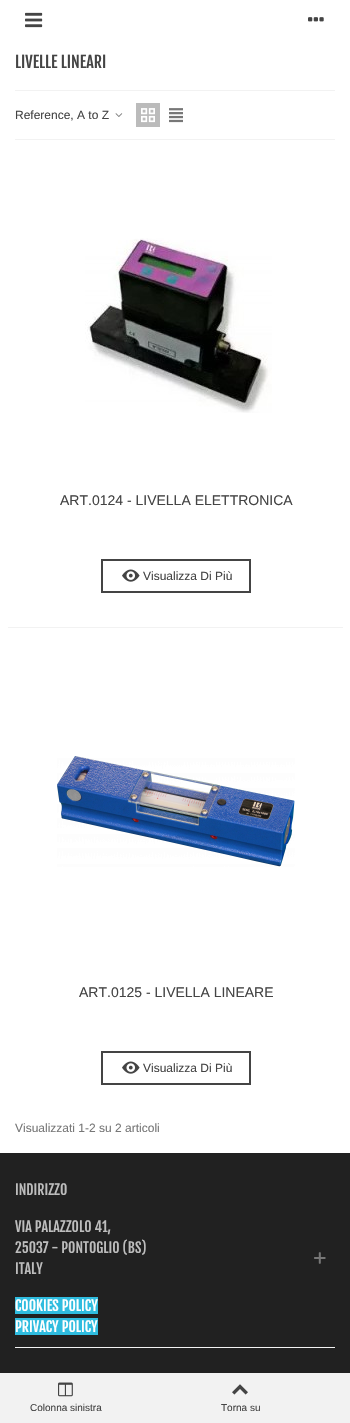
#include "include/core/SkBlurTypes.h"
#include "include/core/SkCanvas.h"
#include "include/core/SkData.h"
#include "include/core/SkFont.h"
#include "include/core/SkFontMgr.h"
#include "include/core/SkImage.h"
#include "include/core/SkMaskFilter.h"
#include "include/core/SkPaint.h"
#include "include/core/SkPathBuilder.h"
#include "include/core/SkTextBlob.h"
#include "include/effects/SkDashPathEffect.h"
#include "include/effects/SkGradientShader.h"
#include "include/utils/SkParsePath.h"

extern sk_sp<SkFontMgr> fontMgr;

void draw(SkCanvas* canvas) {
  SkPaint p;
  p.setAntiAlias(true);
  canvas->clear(SK_ColorWHITE);
  canvas->drawImageRect(SkImages::DeferredFromEncodedData(SkData::MakeFromFileName("images/1.png")), SkRect::MakeLTRB(25, 12, 43, 28), SkSamplingOptions());
  canvas->drawImageRect(SkImages::DeferredFromEncodedData(SkData::MakeFromFileName("images/2.png")), SkRect::MakeLTRB(308, 17, 324, 22), SkSamplingOptions());
  p.setColor(SkColorSetRGB(242, 242, 242));
  canvas->drawRect(SkRect::MakeLTRB(15, 90, 335, 91), p);
  canvas->drawRect(SkRect::MakeLTRB(15, 139, 335, 140), p);
  canvas->drawImageRect(SkImages::DeferredFromEncodedData(SkData::MakeFromFileName("images/3.png")), SkRect::MakeLTRB(115, 113, 123, 117), SkSamplingOptions());
  p.setColor(SkColorSetRGB(187, 187, 187));
  canvas->drawRect(SkRect::MakeLTRB(136, 103, 160, 127), p);
  canvas->drawImageRect(SkImages::DeferredFromEncodedData(SkData::MakeFromFileName("images/4.png")), SkRect::MakeLTRB(141, 108, 155, 123), SkSamplingOptions());
  canvas->drawImageRect(SkImages::DeferredFromEncodedData(SkData::MakeFromFileName("images/5.png")), SkRect::MakeLTRB(169, 108, 183, 123), SkSamplingOptions());
  canvas->drawImageRect(SkImages::DeferredFromEncodedData(SkData::MakeFromFileName("images/6.png")), SkRect::MakeLTRB(85, 238, 272, 413), SkSamplingOptions());
  p.setStyle(SkPaint::kStroke_Style);
  p.setStrokeWidth(2);
  p.setColor(SkColorSetRGB(68, 68, 68));
  canvas->drawRect(SkRect::MakeLTRB(102, 560, 250, 592), p);
  canvas->drawImageRect(SkImages::DeferredFromEncodedData(SkData::MakeFromFileName("images/7.png")), SkRect::MakeLTRB(122, 569, 140, 582), SkSamplingOptions());
  p.setStyle(SkPaint::kFill_Style);
  p.setColor(SkColorSetRGB(242, 242, 242));
  canvas->drawRect(SkRect::MakeLTRB(8, 627, 343, 628), p);
  canvas->drawImageRect(SkImages::DeferredFromEncodedData(SkData::MakeFromFileName("images/8.png")), SkRect::MakeLTRB(57, 756, 295, 867), SkSamplingOptions());
  p.setStyle(SkPaint::kStroke_Style);
  p.setColor(SkColorSetRGB(68, 68, 68));
  canvas->drawRect(SkRect::MakeLTRB(102, 1052, 250, 1084), p);
  canvas->drawImageRect(SkImages::DeferredFromEncodedData(SkData::MakeFromFileName("images/7.png")), SkRect::MakeLTRB(122, 1061, 140, 1074), SkSamplingOptions());
  p.setStyle(SkPaint::kFill_Style);
  p.setColor(SkColorSetRGB(33, 33, 33));
  canvas->drawRect(SkRect::MakeLTRB(0, 1153, 350, 1373), p);
  p.setColor(SkColorSetRGB(242, 242, 242));
  canvas->drawRect(SkRect::MakeLTRB(15, 1347, 335, 1348), p);
  p.setColor(SkColorSetRGB(47, 188, 223));
  canvas->drawRect(SkRect::MakeLTRB(15, 1297, 98, 1314), p);
  canvas->drawRect(SkRect::MakeLTRB(15, 1318, 98, 1335), p);
  canvas->drawImageRect(SkImages::DeferredFromEncodedData(SkData::MakeFromFileName("images/9.png")), SkRect::MakeLTRB(314, 1252, 326, 1264), SkSamplingOptions());
  p.setColor(SkColorSetRGB(242, 242, 242));
  canvas->drawRect(SkRect::MakeLTRB(0, 1373, 350, 1423), p);
  canvas->drawImageRect(SkImages::DeferredFromEncodedData(SkData::MakeFromFileName("images/10.png")), SkRect::MakeLTRB(58, 1382, 73, 1397), SkSamplingOptions());
  canvas->drawImageRect(SkImages::DeferredFromEncodedData(SkData::MakeFromFileName("images/11.png")), SkRect::MakeLTRB(232, 1384, 248, 1395), SkSamplingOptions());
  SkFont font1(fontMgr->matchFamilyStyle("Fjalla One", SkFontStyle::Normal()), 16);
  font1.setSubpixel(true);
  p.setColor(SkColorSetRGB(68, 68, 68));
  canvas->drawString("LIVELLE LINEARI", 15, 68, font1, p);
  SkFont font2(fontMgr->matchFamilyStyle("Liberation Sans", SkFontStyle::Normal()), 12);
  font2.setSubpixel(true);
  canvas->drawString("Reference, A to Z", 15, 119, font2, p);
  SkFont font3(fontMgr->matchFamilyStyle("Liberation Sans", SkFontStyle::Normal()), 14);
  font3.setSubpixel(true);
  canvas->drawString("ART.0124 - LIVELLA ELETTRONICA", 60, 505, font3, p);
  canvas->drawString("Visualizza Di Più", 143, 580, font2, p);
  canvas->drawString("ART.0125 - LIVELLA LINEARE", 79, 997, font3, p);
  canvas->drawString("Visualizza Di Più", 143, 1072, font2, p);
  p.setColor(SkColorSetRGB(119, 119, 119));
  canvas->drawString("Visualizzati 1-2 su 2 articoli", 15, 1132, font2, p);
  SkFont font4(fontMgr->matchFamilyStyle("Fjalla One", SkFontStyle::Normal()), 14);
  font4.setSubpixel(true);
  p.setColor(SkColorSetRGB(189, 189, 189));
  canvas->drawString("INDIRIZZO", 15, 1195, font4, p);
  canvas->drawString("VIA PALAZZOLO 41,", 15, 1232, font4, p);
  canvas->drawString("25037 - PONTOGLIO (BS)", 15, 1253, font4, p);
  canvas->drawString("ITALY", 15, 1274, font4, p);
  p.setColor(SK_ColorWHITE);
  canvas->drawString("COOKIES POLICY", 15, 1311, font4, p);
  canvas->drawString("PRIVACY POLICY", 15, 1332, font4, p);
  SkFont font5(fontMgr->matchFamilyStyle("Liberation Sans", SkFontStyle::Normal()), 10);
  font5.setSubpixel(true);
  p.setColor(SkColorSetRGB(68, 68, 68));
  canvas->drawString("Colonna sinistra", 30, 1411, font5, p);
  canvas->drawString("Torna su", 221, 1411, font5, p);
}
